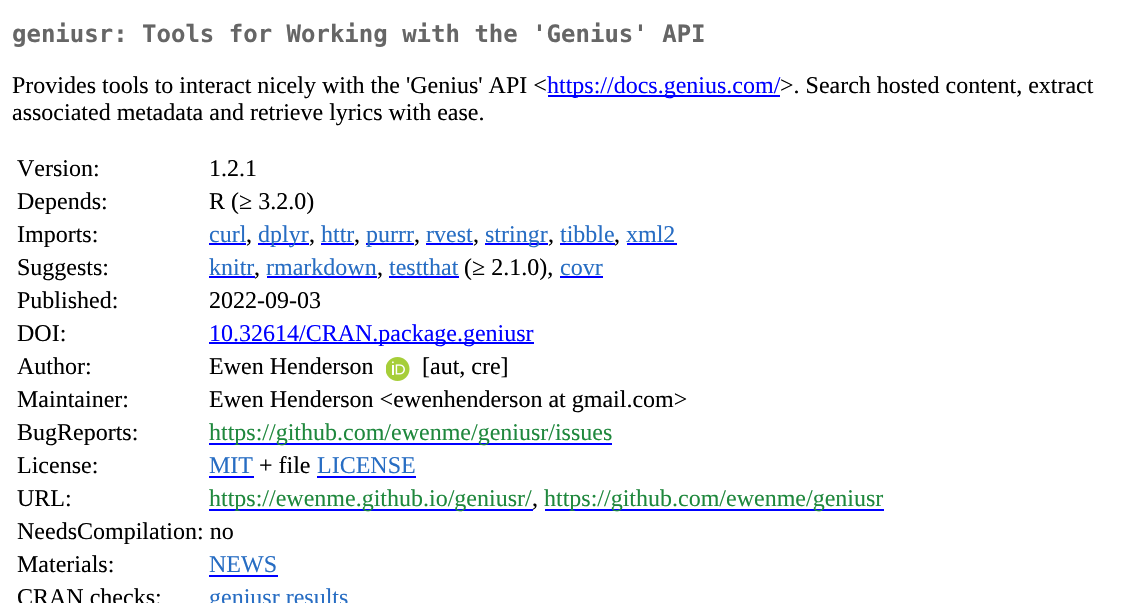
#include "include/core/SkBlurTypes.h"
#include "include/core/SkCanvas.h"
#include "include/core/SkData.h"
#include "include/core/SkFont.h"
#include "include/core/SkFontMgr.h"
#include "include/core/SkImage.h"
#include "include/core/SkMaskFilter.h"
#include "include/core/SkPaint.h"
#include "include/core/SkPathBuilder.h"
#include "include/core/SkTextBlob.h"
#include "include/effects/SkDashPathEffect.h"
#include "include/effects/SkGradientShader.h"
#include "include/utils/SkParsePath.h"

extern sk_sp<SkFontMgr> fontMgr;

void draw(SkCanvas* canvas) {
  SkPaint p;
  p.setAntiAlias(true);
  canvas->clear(SK_ColorWHITE);
  p.setColor(SkColorSetRGB(0, 0, 255));
  canvas->drawRect(SkRect::MakeLTRB(548, 95, 780, 97), p);
  canvas->drawRect(SkRect::MakeLTRB(209, 243, 246, 245), p);
  canvas->drawRect(SkRect::MakeLTRB(258, 243, 309, 245), p);
  canvas->drawRect(SkRect::MakeLTRB(321, 243, 354, 245), p);
  canvas->drawRect(SkRect::MakeLTRB(366, 243, 414, 245), p);
  canvas->drawRect(SkRect::MakeLTRB(426, 243, 473, 245), p);
  canvas->drawRect(SkRect::MakeLTRB(485, 243, 548, 245), p);
  canvas->drawRect(SkRect::MakeLTRB(560, 243, 615, 245), p);
  canvas->drawRect(SkRect::MakeLTRB(627, 243, 677, 245), p);
  canvas->drawRect(SkRect::MakeLTRB(209, 276, 255, 278), p);
  canvas->drawRect(SkRect::MakeLTRB(267, 276, 377, 278), p);
  canvas->drawRect(SkRect::MakeLTRB(389, 276, 459, 278), p);
  canvas->drawRect(SkRect::MakeLTRB(560, 276, 603, 278), p);
  canvas->drawRect(SkRect::MakeLTRB(209, 342, 534, 344), p);
  canvas->drawImageRect(SkImages::DeferredFromEncodedData(SkData::MakeFromFileName("images/1.png")), SkRect::MakeLTRB(386, 357, 410, 381), SkSamplingOptions());
  canvas->drawRect(SkRect::MakeLTRB(209, 443, 612, 445), p);
  canvas->drawRect(SkRect::MakeLTRB(209, 476, 254, 478), p);
  canvas->drawRect(SkRect::MakeLTRB(317, 476, 416, 478), p);
  canvas->drawRect(SkRect::MakeLTRB(209, 509, 533, 511), p);
  canvas->drawRect(SkRect::MakeLTRB(545, 509, 884, 511), p);
  canvas->drawRect(SkRect::MakeLTRB(209, 575, 278, 577), p);
  SkFont font1(fontMgr->matchFamilyStyle("DejaVu Sans Mono", SkFontStyle::Bold()), 24);
  font1.setSubpixel(true);
  p.setColor(SkColorSetRGB(102, 102, 102));
  canvas->drawString("geniusr: Tools for Working with the 'Genius' API", 12, 42, font1, p);
  SkFont font2(fontMgr->matchFamilyStyle("Liberation Serif", SkFontStyle::Normal()), 24);
  font2.setSubpixel(true);
  p.setColor(SK_ColorBLACK);
  canvas->drawString("Provides tools to interact nicely with the 'Genius' API <", 12, 93, font2, p);
  p.setColor(SkColorSetRGB(0, 0, 255));
  canvas->drawString("https://docs.genius.com/", 547, 93, font2, p);
  p.setColor(SK_ColorBLACK);
  canvas->drawString(">. Search hosted content, extract", 780, 93, font2, p);
  canvas->drawString("associated metadata and retrieve lyrics with ease.", 12, 120, font2, p);
  canvas->drawString("Version:", 17, 176, font2, p);
  canvas->drawString("1.2.1", 209, 176, font2, p);
  canvas->drawString("Depends:", 17, 209, font2, p);
  canvas->drawString("R (≥ 3.2.0)", 209, 209, font2, p);
  canvas->drawString("Imports:", 17, 242, font2, p);
  p.setColor(SkColorSetRGB(39, 109, 195));
  canvas->drawString("curl", 209, 242, font2, p);
  p.setColor(SK_ColorBLACK);
  canvas->drawString(",", 246, 242, font2, p);
  p.setColor(SkColorSetRGB(39, 109, 195));
  canvas->drawString("dplyr", 258, 242, font2, p);
  p.setColor(SK_ColorBLACK);
  canvas->drawString(",", 309, 242, font2, p);
  p.setColor(SkColorSetRGB(39, 109, 195));
  canvas->drawString("httr", 321, 242, font2, p);
  p.setColor(SK_ColorBLACK);
  canvas->drawString(",", 354, 242, font2, p);
  p.setColor(SkColorSetRGB(39, 109, 195));
  canvas->drawString("purrr", 366, 242, font2, p);
  p.setColor(SK_ColorBLACK);
  canvas->drawString(",", 414, 242, font2, p);
  p.setColor(SkColorSetRGB(39, 109, 195));
  canvas->drawString("rvest", 426, 242, font2, p);
  p.setColor(SK_ColorBLACK);
  canvas->drawString(",", 473, 242, font2, p);
  p.setColor(SkColorSetRGB(39, 109, 195));
  canvas->drawString("stringr", 485, 242, font2, p);
  p.setColor(SK_ColorBLACK);
  canvas->drawString(",", 548, 242, font2, p);
  p.setColor(SkColorSetRGB(39, 109, 195));
  canvas->drawString("tibble", 560, 242, font2, p);
  p.setColor(SK_ColorBLACK);
  canvas->drawString(",", 614, 242, font2, p);
  p.setColor(SkColorSetRGB(39, 109, 195));
  canvas->drawString("xml2", 626, 242, font2, p);
  p.setColor(SK_ColorBLACK);
  canvas->drawString("Suggests:", 17, 275, font2, p);
  p.setColor(SkColorSetRGB(39, 109, 195));
  canvas->drawString("knitr", 209, 275, font2, p);
  p.setColor(SK_ColorBLACK);
  canvas->drawString(",", 254, 275, font2, p);
  p.setColor(SkColorSetRGB(39, 109, 195));
  canvas->drawString("rmarkdown", 266, 275, font2, p);
  p.setColor(SK_ColorBLACK);
  canvas->drawString(",", 377, 275, font2, p);
  p.setColor(SkColorSetRGB(39, 109, 195));
  canvas->drawString("testthat", 389, 275, font2, p);
  p.setColor(SK_ColorBLACK);
  canvas->drawString("(≥ 2.1.0),", 464, 275, font2, p);
  p.setColor(SkColorSetRGB(39, 109, 195));
  canvas->drawString("covr", 560, 275, font2, p);
  p.setColor(SK_ColorBLACK);
  canvas->drawString("Published:", 17, 308, font2, p);
  canvas->drawString("2022-09-03", 209, 308, font2, p);
  canvas->drawString("DOI:", 17, 341, font2, p);
  p.setColor(SkColorSetRGB(0, 0, 255));
  canvas->drawString("10.32614/CRAN.package.geniusr", 209, 341, font2, p);
  p.setColor(SK_ColorBLACK);
  canvas->drawString("Author:", 17, 374, font2, p);
  canvas->drawString("Ewen Henderson", 209, 374, font2, p);
  canvas->drawString("[aut, cre]", 422, 374, font2, p);
  canvas->drawString("Maintainer:", 17, 407, font2, p);
  canvas->drawString("Ewen Henderson <ewenhenderson at gmail.com>", 209, 407, font2, p);
  canvas->drawString("BugReports:", 17, 440, font2, p);
  p.setColor(SkColorSetRGB(31, 136, 61));
  canvas->drawString("https://github.com/ewenme/geniusr/issues", 209, 440, font2, p);
  p.setColor(SK_ColorBLACK);
  canvas->drawString("License:", 17, 473, font2, p);
  p.setColor(SkColorSetRGB(39, 109, 195));
  canvas->drawString("MIT", 209, 473, font2, p);
  p.setColor(SK_ColorBLACK);
  canvas->drawString("+ file", 259, 473, font2, p);
  p.setColor(SkColorSetRGB(39, 109, 195));
  canvas->drawString("LICENSE", 317, 473, font2, p);
  p.setColor(SK_ColorBLACK);
  canvas->drawString("URL:", 17, 506, font2, p);
  p.setColor(SkColorSetRGB(31, 136, 61));
  canvas->drawString("https://ewenme.github.io/geniusr/", 209, 506, font2, p);
  p.setColor(SK_ColorBLACK);
  canvas->drawString(",", 532, 506, font2, p);
  p.setColor(SkColorSetRGB(31, 136, 61));
  canvas->drawString("https://github.com/ewenme/geniusr", 544, 506, font2, p);
  p.setColor(SK_ColorBLACK);
  canvas->drawString("NeedsCompilation: no", 17, 539, font2, p);
  canvas->drawString("Materials:", 17, 572, font2, p);
  p.setColor(SkColorSetRGB(39, 109, 195));
  canvas->drawString("NEWS", 209, 572, font2, p);
  p.setColor(SK_ColorBLACK);
  canvas->drawString("CRAN checks:", 17, 605, font2, p);
  p.setColor(SkColorSetRGB(39, 109, 195));
  canvas->drawString("geniusr results", 209, 605, font2, p);
}
